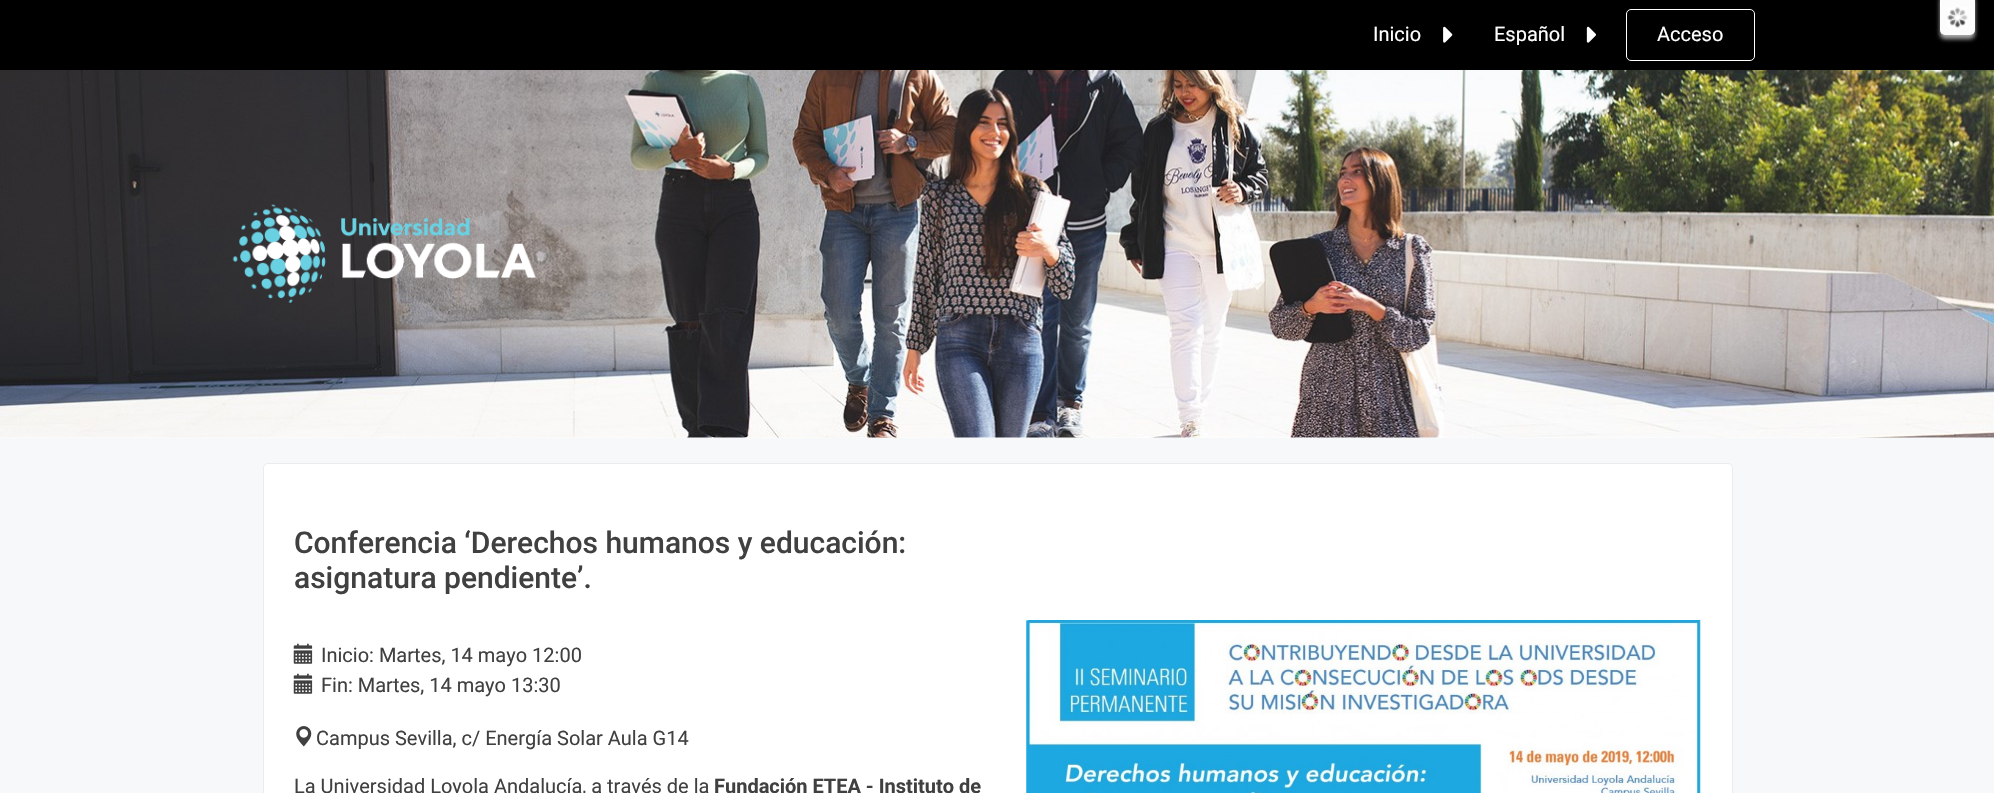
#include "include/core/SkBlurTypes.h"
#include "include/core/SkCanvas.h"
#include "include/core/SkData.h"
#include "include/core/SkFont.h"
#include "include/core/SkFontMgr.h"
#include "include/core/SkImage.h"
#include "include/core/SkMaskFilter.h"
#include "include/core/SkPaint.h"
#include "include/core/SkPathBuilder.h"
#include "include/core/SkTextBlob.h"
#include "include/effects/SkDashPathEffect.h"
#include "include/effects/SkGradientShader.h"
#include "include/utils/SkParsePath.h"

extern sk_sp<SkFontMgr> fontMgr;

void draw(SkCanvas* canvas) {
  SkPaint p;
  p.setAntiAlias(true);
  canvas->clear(SK_ColorWHITE);
  canvas->drawImageRect(SkImages::DeferredFromEncodedData(SkData::MakeFromFileName("images/1.png")), SkRect::MakeLTRB(0, 70, 1994, 438), SkSamplingOptions());
  p.setColor(SK_ColorBLACK);
  canvas->drawRect(SkRect::MakeLTRB(0, 0, 1994, 70), p);
  canvas->drawImageRect(SkImages::DeferredFromEncodedData(SkData::MakeFromFileName("images/2.png")), SkRect::MakeLTRB(1443, 26, 1453, 43), SkSamplingOptions());
  canvas->drawImageRect(SkImages::DeferredFromEncodedData(SkData::MakeFromFileName("images/3.png")), SkRect::MakeLTRB(1586, 26, 1596, 43), SkSamplingOptions());
  p.setStyle(SkPaint::kStroke_Style);
  p.setStrokeWidth(1);
  p.setColor(SK_ColorWHITE);
  canvas->drawRoundRect(SkRect::MakeLTRB(1626.5f, 9.5f, 1754.5f, 60.5f), 4.5f, 4.5f, p);
  canvas->drawImageRect(SkImages::DeferredFromEncodedData(SkData::MakeFromFileName("images/4.png")), SkRect::MakeLTRB(232, 204, 537, 303), SkSamplingOptions());
  p.setStyle(SkPaint::kFill_Style);
  p.setColor(SkColorSetRGB(170, 170, 170));
  p.setMaskFilter(SkMaskFilter::MakeBlur(kNormal_SkBlurStyle, 2));
  canvas->drawRoundRect(SkRect::MakeLTRB(1940, -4, 1975, 39), 5, 5, p);
  p.setMaskFilter(nullptr);
  p.setColor(SkColorSetRGB(252, 252, 252));
  canvas->drawRoundRect(SkRect::MakeLTRB(1940, -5, 1975, 35), 5, 5, p);
  canvas->drawImageRect(SkImages::DeferredFromEncodedData(SkData::MakeFromFileName("images/5.png")), SkRect::MakeLTRB(1947, 7, 1968, 28), SkSamplingOptions());
  p.setColor(SkColorSetRGB(247, 248, 250));
  canvas->drawRect(SkRect::MakeLTRB(0, 438, 1994, 793), p);
  p.setColor(SK_ColorWHITE);
  canvas->drawRoundRect(SkRect::MakeLTRB(263.5f, 463.5f, 1732.5f, 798.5f), 4.5f, 4.5f, p);
  p.setStyle(SkPaint::kStroke_Style);
  p.setColor(SkColorSetRGB(235, 236, 237));
  canvas->drawRoundRect(SkRect::MakeLTRB(263.5f, 463.5f, 1732.5f, 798.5f), 4.5f, 4.5f, p);
  canvas->drawImageRect(SkImages::DeferredFromEncodedData(SkData::MakeFromFileName("images/6.png")), SkRect::MakeLTRB(293, 643, 313, 664), SkSamplingOptions());
  canvas->drawImageRect(SkImages::DeferredFromEncodedData(SkData::MakeFromFileName("images/6.png")), SkRect::MakeLTRB(293, 673, 313, 694), SkSamplingOptions());
  canvas->drawImageRect(SkImages::DeferredFromEncodedData(SkData::MakeFromFileName("images/7.png")), SkRect::MakeLTRB(1026, 620, 1702, 793), SkSamplingOptions());
  canvas->drawImageRect(SkImages::DeferredFromEncodedData(SkData::MakeFromFileName("images/8.png")), SkRect::MakeLTRB(296, 726, 312, 747), SkSamplingOptions());
  SkFont font1(fontMgr->matchFamilyStyle("Roboto", SkFontStyle::Normal()), 20);
  font1.setSubpixel(true);
  p.setStyle(SkPaint::kFill_Style);
  p.setColor(SK_ColorWHITE);
  canvas->drawString("Inicio", 1373, 41, font1, p);
  canvas->drawString("Español", 1494, 41, font1, p);
  canvas->drawString("Acceso", 1657, 41, font1, p);
  SkFont font2(fontMgr->matchFamilyStyle("Roboto", SkFontStyle(500, SkFontStyle::kNormal_Width, SkFontStyle::kUpright_Slant)), 30);
  font2.setSubpixel(true);
  p.setColor(SkColorSetRGB(64, 64, 64));
  canvas->drawString("Conferencia ‘Derechos humanos y educación:", 294, 553, font2, p);
  canvas->drawString("asignatura pendiente’.", 294, 588, font2, p);
  canvas->drawString("Inicio: Martes, 14 mayo 12:00", 321, 662, font1, p);
  canvas->drawString("Fin: Martes, 14 mayo 13:30", 321, 692, font1, p);
  canvas->drawString("Campus Sevilla, c/ Energía Solar Aula G14", 316, 745, font1, p);
  canvas->drawString("La Universidad Loyola Andalucía, a través de la", 294, 793, font1, p);
  SkFont font3(fontMgr->matchFamilyStyle("Roboto", SkFontStyle::Bold()), 20);
  font3.setSubpixel(true);
  canvas->drawString("Fundación ETEA - Instituto de", 714, 793, font3, p);
}
